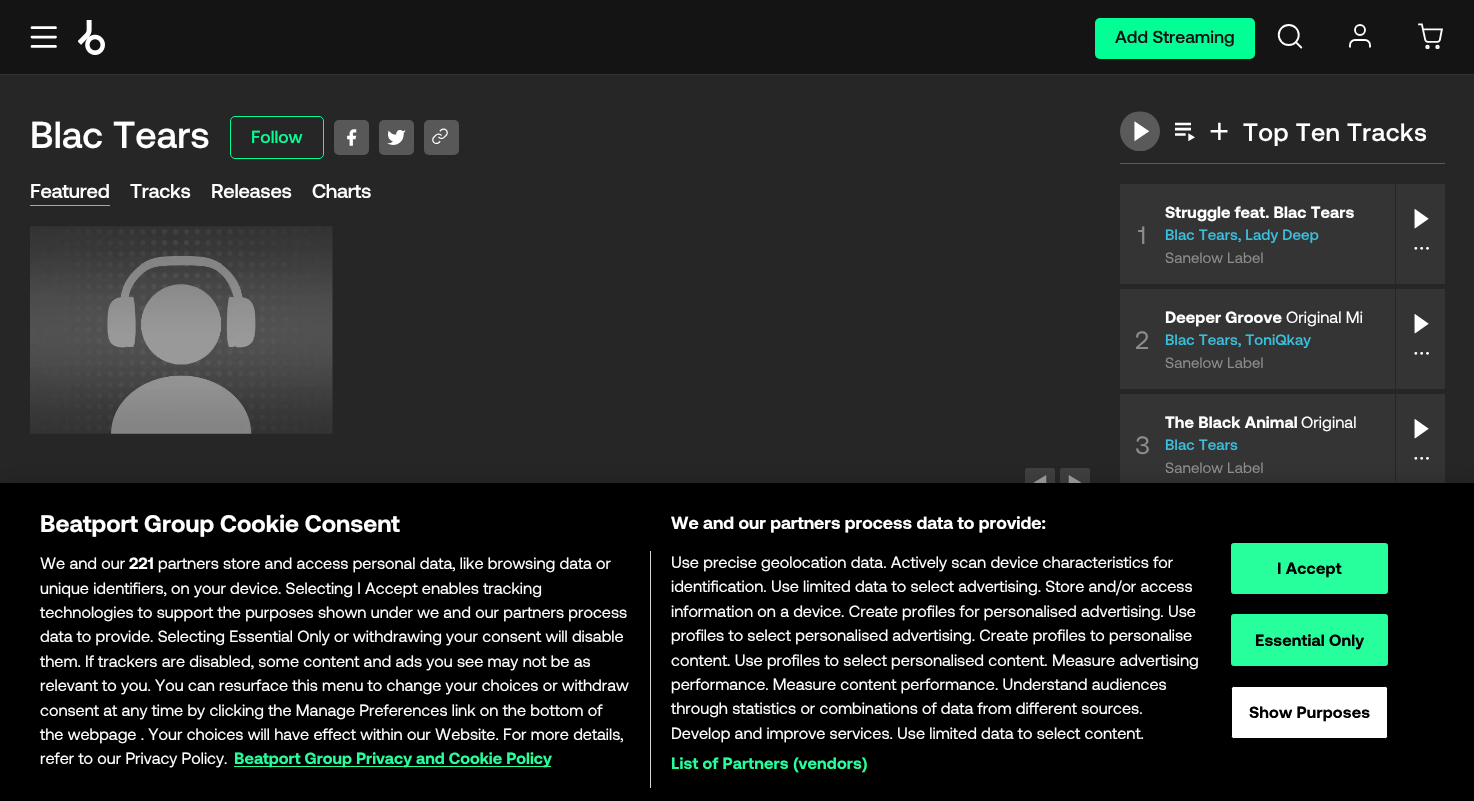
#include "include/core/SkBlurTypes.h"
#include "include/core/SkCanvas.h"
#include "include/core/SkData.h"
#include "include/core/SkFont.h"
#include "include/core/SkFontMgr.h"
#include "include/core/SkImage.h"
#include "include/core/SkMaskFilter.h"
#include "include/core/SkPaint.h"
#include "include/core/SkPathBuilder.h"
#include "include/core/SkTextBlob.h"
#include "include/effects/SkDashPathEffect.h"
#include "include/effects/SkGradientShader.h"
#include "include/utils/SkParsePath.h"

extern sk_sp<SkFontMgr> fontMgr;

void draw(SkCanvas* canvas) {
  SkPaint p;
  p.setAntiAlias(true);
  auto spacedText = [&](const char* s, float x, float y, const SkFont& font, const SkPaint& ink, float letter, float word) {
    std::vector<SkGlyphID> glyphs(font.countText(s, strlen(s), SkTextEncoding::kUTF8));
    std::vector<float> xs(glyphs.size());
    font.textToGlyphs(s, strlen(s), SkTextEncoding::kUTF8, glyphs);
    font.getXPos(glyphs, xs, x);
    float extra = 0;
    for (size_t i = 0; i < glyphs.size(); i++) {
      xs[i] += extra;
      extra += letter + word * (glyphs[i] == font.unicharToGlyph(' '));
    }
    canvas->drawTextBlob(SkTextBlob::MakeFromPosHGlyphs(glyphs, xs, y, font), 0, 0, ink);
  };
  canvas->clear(SkColorSetRGB(38, 38, 38));
  p.setColor(SkColorSetRGB(20, 20, 20));
  canvas->drawRect(SkRect::MakeLTRB(0, 0, 1474, 74), p);
  p.setColor(SkColorSetRGB(51, 51, 51));
  canvas->drawRect(SkRect::MakeLTRB(0, 74, 1474, 75), p);
  canvas->drawImageRect(SkImages::DeferredFromEncodedData(SkData::MakeFromFileName("images/1.png")), SkRect::MakeLTRB(30, 26, 57, 48), SkSamplingOptions());
  canvas->drawImageRect(SkImages::DeferredFromEncodedData(SkData::MakeFromFileName("images/2.png")), SkRect::MakeLTRB(78, 20, 105, 55), SkSamplingOptions());
  p.setColor(SkColorSetRGB(1, 255, 149));
  canvas->drawRoundRect(SkRect::MakeLTRB(1095, 18, 1255, 59), 5, 5, p);
  canvas->drawImageRect(SkImages::DeferredFromEncodedData(SkData::MakeFromFileName("images/3.png")), SkRect::MakeLTRB(1277, 24, 1303, 49), SkSamplingOptions());
  canvas->drawImageRect(SkImages::DeferredFromEncodedData(SkData::MakeFromFileName("images/4.png")), SkRect::MakeLTRB(1349, 24, 1371, 48), SkSamplingOptions());
  canvas->drawImageRect(SkImages::DeferredFromEncodedData(SkData::MakeFromFileName("images/5.png")), SkRect::MakeLTRB(1418, 23, 1443, 49), SkSamplingOptions());
  p.setStyle(SkPaint::kStroke_Style);
  p.setStrokeWidth(1);
  canvas->drawRoundRect(SkRect::MakeLTRB(230.5f, 116.5f, 323.5f, 158.5f), 4.5f, 4.5f, p);
  p.setStyle(SkPaint::kFill_Style);
  p.setColor(SkColorSetRGB(88, 88, 88));
  canvas->drawRoundRect(SkRect::MakeLTRB(334, 120, 369, 155), 5, 5, p);
  canvas->drawImageRect(SkImages::DeferredFromEncodedData(SkData::MakeFromFileName("images/6.png")), SkRect::MakeLTRB(347, 129, 357, 146), SkSamplingOptions());
  canvas->drawRoundRect(SkRect::MakeLTRB(379, 120, 414, 155), 5, 5, p);
  canvas->drawImageRect(SkImages::DeferredFromEncodedData(SkData::MakeFromFileName("images/7.png")), SkRect::MakeLTRB(387, 130, 406, 145), SkSamplingOptions());
  canvas->drawRoundRect(SkRect::MakeLTRB(424, 120, 459, 155), 5, 5, p);
  canvas->drawImageRect(SkImages::DeferredFromEncodedData(SkData::MakeFromFileName("images/8.png")), SkRect::MakeLTRB(432, 128, 448, 144), SkSamplingOptions());
  p.setColor(SkColorSetRGB(1, 255, 149));
  canvas->drawRect(SkRect::MakeLTRB(30, 205, 110, 206), p);
  canvas->drawImageRect(SkImages::DeferredFromEncodedData(SkData::MakeFromFileName("images/9.png")), SkRect::MakeLTRB(30, 226, 333, 434), SkSamplingOptions());
  p.setColor(SkColorSetRGB(64, 64, 64));
  canvas->drawRoundRect(SkRect::MakeLTRB(1025, 468, 1055, 498), 2.5f, 2.5f, p);
  canvas->drawImageRect(SkImages::DeferredFromEncodedData(SkData::MakeFromFileName("images/10.png")), SkRect::MakeLTRB(1034, 475, 1047, 483), SkSamplingOptions());
  canvas->drawRoundRect(SkRect::MakeLTRB(1060, 468, 1090, 498), 2.5f, 2.5f, p);
  canvas->drawImageRect(SkImages::DeferredFromEncodedData(SkData::MakeFromFileName("images/11.png")), SkRect::MakeLTRB(1068, 475, 1081, 483), SkSamplingOptions());
  canvas->drawImageRect(SkImages::DeferredFromEncodedData(SkData::MakeFromFileName("images/12.png")), SkRect::MakeLTRB(1120, 111, 1160, 151), SkSamplingOptions());
  canvas->drawImageRect(SkImages::DeferredFromEncodedData(SkData::MakeFromFileName("images/13.png")), SkRect::MakeLTRB(1175, 122, 1195, 141), SkSamplingOptions());
  canvas->drawImageRect(SkImages::DeferredFromEncodedData(SkData::MakeFromFileName("images/14.png")), SkRect::MakeLTRB(1210, 122, 1228, 140), SkSamplingOptions());
  p.setColor(SkColorSetRGB(90, 90, 90));
  canvas->drawRect(SkRect::MakeLTRB(1120, 163, 1445, 164), p);
  p.setColor(SkColorSetRGB(52, 52, 52));
  canvas->drawRect(SkRect::MakeLTRB(1120, 184, 1445, 284), p);
  p.setColor(SkColorSetRGB(38, 38, 38));
  canvas->drawRect(SkRect::MakeLTRB(1395, 184, 1396, 284), p);
  canvas->drawImageRect(SkImages::DeferredFromEncodedData(SkData::MakeFromFileName("images/15.png")), SkRect::MakeLTRB(1414, 209, 1429, 229), SkSamplingOptions());
  canvas->drawImageRect(SkImages::DeferredFromEncodedData(SkData::MakeFromFileName("images/16.png")), SkRect::MakeLTRB(1414, 247, 1429, 250), SkSamplingOptions());
  p.setColor(SkColorSetRGB(52, 52, 52));
  canvas->drawRect(SkRect::MakeLTRB(1120, 289, 1445, 389), p);
  p.setColor(SkColorSetRGB(38, 38, 38));
  canvas->drawRect(SkRect::MakeLTRB(1395, 289, 1396, 389), p);
  canvas->drawImageRect(SkImages::DeferredFromEncodedData(SkData::MakeFromFileName("images/15.png")), SkRect::MakeLTRB(1414, 314, 1429, 334), SkSamplingOptions());
  canvas->drawImageRect(SkImages::DeferredFromEncodedData(SkData::MakeFromFileName("images/16.png")), SkRect::MakeLTRB(1414, 352, 1429, 355), SkSamplingOptions());
  p.setColor(SkColorSetRGB(52, 52, 52));
  canvas->drawRect(SkRect::MakeLTRB(1120, 394, 1445, 483), p);
  p.setColor(SkColorSetRGB(38, 38, 38));
  canvas->drawRect(SkRect::MakeLTRB(1395, 394, 1396, 483), p);
  canvas->drawImageRect(SkImages::DeferredFromEncodedData(SkData::MakeFromFileName("images/15.png")), SkRect::MakeLTRB(1414, 419, 1429, 439), SkSamplingOptions());
  canvas->drawImageRect(SkImages::DeferredFromEncodedData(SkData::MakeFromFileName("images/16.png")), SkRect::MakeLTRB(1414, 457, 1429, 460), SkSamplingOptions());
  p.setColor(SkColorSetARGB(51, 0, 0, 0));
  p.setMaskFilter(SkMaskFilter::MakeBlur(kNormal_SkBlurStyle, 11));
  canvas->drawRect(SkRect::MakeLTRB(0, 483, 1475, 801), p);
  p.setMaskFilter(nullptr);
  p.setColor(SK_ColorBLACK);
  canvas->drawRect(SkRect::MakeLTRB(0, 483, 1474, 801), p);
  p.setColor(SkColorSetRGB(216, 216, 216));
  canvas->drawRect(SkRect::MakeLTRB(650, 551, 651, 788), p);
  p.setColor(SkColorSetRGB(39, 255, 156));
  canvas->drawRect(SkRect::MakeLTRB(234, 766, 551, 767), p);
  canvas->drawRoundRect(SkRect::MakeLTRB(1231.5f, 543.5f, 1387.5f, 593.5f), 2, 2, p);
  p.setStyle(SkPaint::kStroke_Style);
  canvas->drawRoundRect(SkRect::MakeLTRB(1231.5f, 543.5f, 1387.5f, 593.5f), 2, 2, p);
  p.setStyle(SkPaint::kFill_Style);
  canvas->drawRoundRect(SkRect::MakeLTRB(1231.5f, 614.5f, 1387.5f, 665.5f), 2, 2, p);
  p.setStyle(SkPaint::kStroke_Style);
  canvas->drawRoundRect(SkRect::MakeLTRB(1231.5f, 614.5f, 1387.5f, 665.5f), 2, 2, p);
  p.setStyle(SkPaint::kFill_Style);
  p.setColor(SK_ColorWHITE);
  canvas->drawRoundRect(SkRect::MakeLTRB(1231.5f, 686.5f, 1387.5f, 738.5f), 2, 2, p);
  p.setStyle(SkPaint::kStroke_Style);
  p.setColor(SK_ColorBLACK);
  canvas->drawRoundRect(SkRect::MakeLTRB(1231.5f, 686.5f, 1387.5f, 738.5f), 2, 2, p);
  SkFont font1(fontMgr->matchFamilyStyle("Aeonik", SkFontStyle(500, SkFontStyle::kNormal_Width, SkFontStyle::kUpright_Slant)), 17.5f);
  font1.setSubpixel(true);
  p.setStyle(SkPaint::kFill_Style);
  p.setColor(SkColorSetRGB(20, 20, 20));
  canvas->drawString("Add Streaming", 1115, 43, font1, p);
  SkFont font2(fontMgr->matchFamilyStyle("Aeonik", SkFontStyle(500, SkFontStyle::kNormal_Width, SkFontStyle::kUpright_Slant)), 37.5f);
  font2.setSubpixel(true);
  p.setColor(SK_ColorWHITE);
  canvas->drawString("Blac Tears", 30, 148, font2, p);
  p.setColor(SkColorSetRGB(1, 255, 149));
  canvas->drawString("Follow", 251, 143, font1, p);
  SkFont font3(fontMgr->matchFamilyStyle("Aeonik", SkFontStyle(500, SkFontStyle::kNormal_Width, SkFontStyle::kUpright_Slant)), 20);
  font3.setSubpixel(true);
  p.setColor(SK_ColorWHITE);
  spacedText("Featured", 30, 198, font3, p, -0.25f, 0);
  spacedText("Tracks", 130, 198, font3, p, -0.25f, 0);
  spacedText("Releases", 211, 198, font3, p, -0.25f, 0);
  spacedText("Charts", 312, 198, font3, p, -0.25f, 0);
  SkFont font4(fontMgr->matchFamilyStyle("Aeonik", SkFontStyle(500, SkFontStyle::kNormal_Width, SkFontStyle::kUpright_Slant)), 25);
  font4.setSubpixel(true);
  spacedText("Top Ten Tracks", 1243, 141, font4, p, 0.4f, 0);
  SkFont font5(fontMgr->matchFamilyStyle("Aeonik", SkFontStyle::Normal()), 25);
  font5.setSubpixel(true);
  p.setColor(SkColorSetRGB(140, 140, 140));
  canvas->drawString("1", 1138, 244, font5, p);
  SkFont font6(fontMgr->matchFamilyStyle("Aeonik", SkFontStyle::Bold()), 16.25f);
  font6.setSubpixel(true);
  p.setColor(SK_ColorWHITE);
  spacedText("Struggle feat. Blac Tears", 1165, 218, font6, p, 0.1f, 0);
  SkFont font7(fontMgr->matchFamilyStyle("Aeonik", SkFontStyle(500, SkFontStyle::kNormal_Width, SkFontStyle::kUpright_Slant)), 15);
  font7.setSubpixel(true);
  p.setColor(SkColorSetRGB(57, 192, 222));
  spacedText("Blac Tears, Lady Deep", 1165, 240, font7, p, 0.1f, 0);
  SkFont font8(fontMgr->matchFamilyStyle("Aeonik", SkFontStyle::Normal()), 15);
  font8.setSubpixel(true);
  p.setColor(SkColorSetRGB(140, 140, 140));
  spacedText("Sanelow Label", 1165, 263, font8, p, 0.1f, 0);
  canvas->drawString("2", 1135, 349, font5, p);
  p.setColor(SK_ColorWHITE);
  spacedText("Deeper Groove", 1165, 323, font6, p, 0.1f, 0);
  SkFont font9(fontMgr->matchFamilyStyle("Aeonik", SkFontStyle::Normal()), 16.25f);
  font9.setSubpixel(true);
  spacedText("Original Mi", 1286, 323, font9, p, 0.1f, 0);
  p.setColor(SkColorSetRGB(57, 192, 222));
  spacedText("Blac Tears, ToniQkay", 1165, 345, font7, p, 0.1f, 0);
  p.setColor(SkColorSetRGB(140, 140, 140));
  spacedText("Sanelow Label", 1165, 368, font8, p, 0.1f, 0);
  canvas->drawString("3", 1135, 454, font5, p);
  p.setColor(SK_ColorWHITE);
  spacedText("The Black Animal", 1165, 428, font6, p, 0.1f, 0);
  spacedText("Original", 1301, 428, font9, p, 0.1f, 0);
  p.setColor(SkColorSetRGB(57, 192, 222));
  spacedText("Blac Tears", 1165, 450, font7, p, 0.1f, 0);
  p.setColor(SkColorSetRGB(140, 140, 140));
  spacedText("Sanelow Label", 1165, 473, font8, p, 0.1f, 0);
  SkFont font10(fontMgr->matchFamilyStyle("Aeonik", SkFontStyle::Bold()), 24);
  font10.setSubpixel(true);
  p.setColor(SK_ColorWHITE);
  canvas->drawString("Beatport Group Cookie Consent", 40, 532, font10, p);
  SkFont font11(fontMgr->matchFamilyStyle("Aeonik", SkFontStyle::Bold()), 17.6f);
  font11.setSubpixel(true);
  canvas->drawString("We and our partners process data to provide:", 671, 529, font11, p);
  canvas->drawString("Use precise geolocation data. Actively scan device characteristics for", 671, 568, font9, p);
  canvas->drawString("identification. Use limited data to select advertising. Store and/or access", 671, 592, font9, p);
  canvas->drawString("information on a device. Create profiles for personalised advertising. Use", 671, 617, font9, p);
  canvas->drawString("profiles to select personalised advertising. Create profiles to personalise", 671, 641, font9, p);
  canvas->drawString("content. Use profiles to select personalised content. Measure advertising", 671, 666, font9, p);
  canvas->drawString("performance. Measure content performance. Understand audiences", 671, 690, font9, p);
  canvas->drawString("through statistics or combinations of data from different sources.", 671, 714, font9, p);
  canvas->drawString("Develop and improve services. Use limited data to select content.", 671, 739, font9, p);
  p.setColor(SkColorSetRGB(39, 255, 156));
  spacedText("List of Partners (vendors)", 671, 769, font6, p, 0.15f, 0);
  p.setColor(SK_ColorWHITE);
  canvas->drawString("We and our", 40, 569, font9, p);
  canvas->drawString("221", 129, 569, font6, p);
  canvas->drawString("partners store and access personal data, like browsing data or", 158, 569, font9, p);
  canvas->drawString("unique identifiers, on your device. Selecting I Accept enables tracking", 40, 594, font9, p);
  canvas->drawString("technologies to support the purposes shown under we and our partners process", 40, 618, font9, p);
  canvas->drawString("data to provide. Selecting Essential Only or withdrawing your consent will disable", 40, 642, font9, p);
  canvas->drawString("them. If trackers are disabled, some content and ads you see may not be as", 40, 667, font9, p);
  canvas->drawString("relevant to you. You can resurface this menu to change your choices or withdraw", 40, 691, font9, p);
  canvas->drawString("consent at any time by clicking the Manage Preferences link on the bottom of", 40, 716, font9, p);
  canvas->drawString("the webpage . Your choices will have effect within our Website. For more details,", 40, 740, font9, p);
  canvas->drawString("refer to our Privacy Policy.", 40, 764, font9, p);
  p.setColor(SkColorSetRGB(39, 255, 156));
  canvas->drawString("Beatport Group Privacy and Cookie Policy", 234, 764, font6, p);
  p.setColor(SK_ColorBLACK);
  spacedText("I Accept", 1277, 574, font6, p, 0.15f, 0);
  spacedText("Essential Only", 1255, 646, font6, p, 0.15f, 0);
  spacedText("Show Purposes", 1249, 718, font6, p, 0.15f, 0);
}
